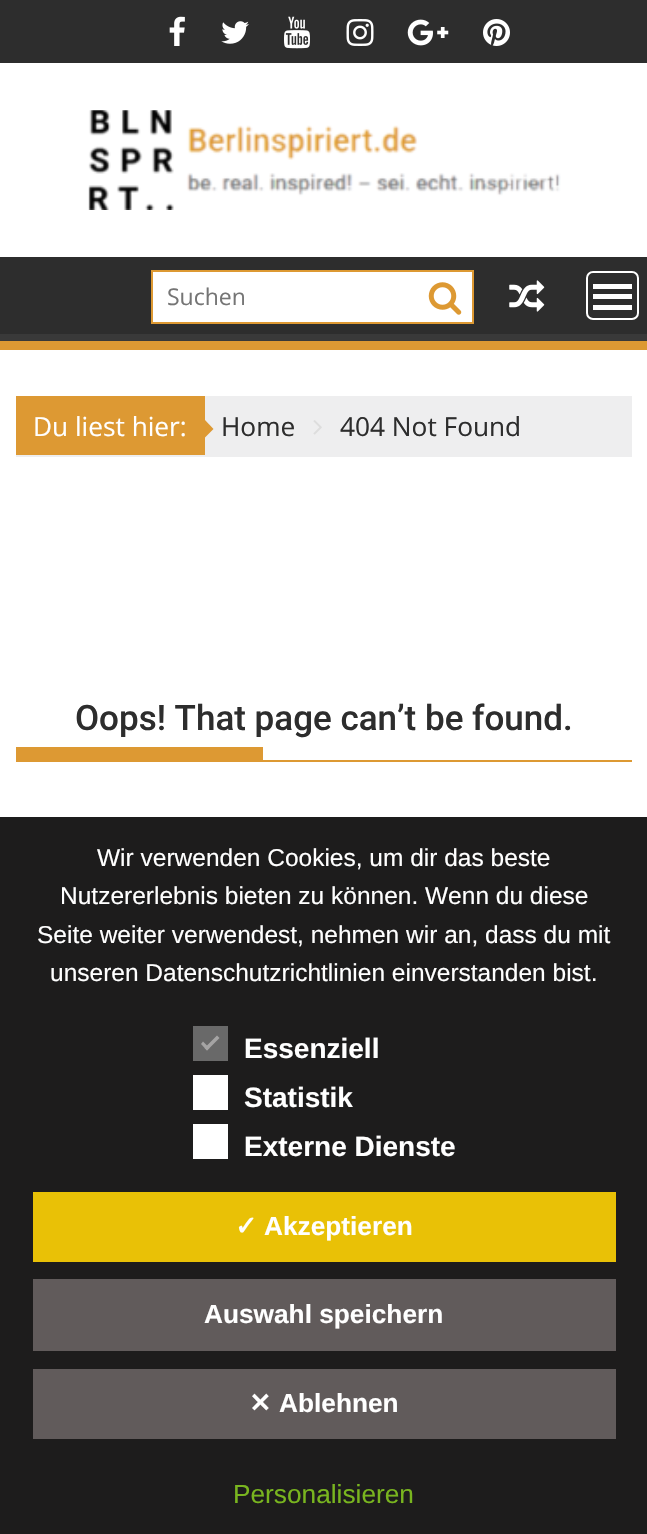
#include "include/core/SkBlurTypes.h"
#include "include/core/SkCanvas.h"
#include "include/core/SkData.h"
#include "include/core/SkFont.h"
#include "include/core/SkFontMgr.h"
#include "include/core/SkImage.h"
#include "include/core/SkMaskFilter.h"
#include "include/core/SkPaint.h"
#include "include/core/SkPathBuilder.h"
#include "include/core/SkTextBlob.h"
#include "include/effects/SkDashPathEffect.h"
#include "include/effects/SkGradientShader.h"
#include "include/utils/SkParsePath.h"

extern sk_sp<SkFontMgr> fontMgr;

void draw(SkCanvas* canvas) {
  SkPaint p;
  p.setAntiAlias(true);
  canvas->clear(SK_ColorWHITE);
  p.setColor(SkColorSetRGB(45, 45, 45));
  canvas->drawRect(SkRect::MakeLTRB(0, 0, 647, 63), p);
  canvas->drawImageRect(SkImages::DeferredFromEncodedData(SkData::MakeFromFileName("images/1.png")), SkRect::MakeLTRB(169, 16, 185, 46), SkSamplingOptions());
  canvas->drawImageRect(SkImages::DeferredFromEncodedData(SkData::MakeFromFileName("images/2.png")), SkRect::MakeLTRB(221, 21, 249, 44), SkSamplingOptions());
  canvas->drawImageRect(SkImages::DeferredFromEncodedData(SkData::MakeFromFileName("images/3.png")), SkRect::MakeLTRB(284, 16, 310, 49), SkSamplingOptions());
  canvas->drawImageRect(SkImages::DeferredFromEncodedData(SkData::MakeFromFileName("images/4.png")), SkRect::MakeLTRB(346, 19, 374, 46), SkSamplingOptions());
  canvas->drawImageRect(SkImages::DeferredFromEncodedData(SkData::MakeFromFileName("images/5.png")), SkRect::MakeLTRB(407, 19, 449, 46), SkSamplingOptions());
  canvas->drawImageRect(SkImages::DeferredFromEncodedData(SkData::MakeFromFileName("images/6.png")), SkRect::MakeLTRB(483, 19, 510, 46), SkSamplingOptions());
  canvas->drawImageRect(SkImages::DeferredFromEncodedData(SkData::MakeFromFileName("images/7.png")), SkRect::MakeLTRB(88, 110, 561, 210), SkSamplingOptions());
  canvas->drawRect(SkRect::MakeLTRB(0, 257, 647, 334), p);
  canvas->save();
  canvas->clipRect(SkRect::MakeLTRB(0, 257, 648, 341));
  p.setColor(SkColorSetRGB(57, 57, 57));
  canvas->drawPath(SkPathBuilder(SkPathFillType::kEvenOdd).moveTo(-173, 84).lineTo(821, 84).lineTo(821, 514).lineTo(-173, 514).close().moveTo(-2, 247).lineTo(646, 247).cubicTo(647, 247, 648, 248, 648, 248).lineTo(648, 332).cubicTo(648, 333, 647, 334, 646, 334).lineTo(-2, 334).cubicTo(-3, 334, -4, 333, -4, 332).lineTo(-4, 248).cubicTo(-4, 248, -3, 247, -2, 247).close().detach(), p);
  canvas->restore();
  p.setColor(SkColorSetRGB(221, 153, 51));
  canvas->drawRect(SkRect::MakeLTRB(0, 341, 647, 350), p);
  p.setColor(SK_ColorWHITE);
  canvas->drawRect(SkRect::MakeLTRB(152, 271, 473, 323), p);
  p.setStyle(SkPaint::kStroke_Style);
  p.setStrokeWidth(2);
  p.setColor(SkColorSetRGB(221, 153, 51));
  canvas->drawRect(SkRect::MakeLTRB(152, 271, 473, 323), p);
  canvas->drawImageRect(SkImages::DeferredFromEncodedData(SkData::MakeFromFileName("images/8.png")), SkRect::MakeLTRB(428, 282, 462, 315), SkSamplingOptions());
  canvas->drawImageRect(SkImages::DeferredFromEncodedData(SkData::MakeFromFileName("images/9.png")), SkRect::MakeLTRB(509, 280, 545, 312), SkSamplingOptions());
  p.setColor(SK_ColorWHITE);
  canvas->drawRoundRect(SkRect::MakeLTRB(587, 272, 638, 319), 6, 6, p);
  p.setStyle(SkPaint::kFill_Style);
  canvas->drawRect(SkRect::MakeLTRB(593, 305, 632, 310), p);
  canvas->drawRect(SkRect::MakeLTRB(593, 294, 632, 299), p);
  canvas->drawRect(SkRect::MakeLTRB(593, 284, 632, 289), p);
  p.setColor(SkColorSetRGB(238, 238, 239));
  canvas->drawRect(SkRect::MakeLTRB(16, 396, 632, 457), p);
  p.setColor(SkColorSetRGB(221, 153, 51));
  canvas->drawRect(SkRect::MakeLTRB(16, 396, 205, 455), p);
  canvas->drawPath(SkPathBuilder().moveTo(205, 437.5f).lineTo(205, 420).lineTo(213.5f, 429).close().detach(), p);
  canvas->drawImageRect(SkImages::DeferredFromEncodedData(SkData::MakeFromFileName("images/10.png")), SkRect::MakeLTRB(313, 420, 322, 435), SkSamplingOptions());
  canvas->drawRect(SkRect::MakeLTRB(16, 760, 632, 762), p);
  canvas->drawRect(SkRect::MakeLTRB(16, 747, 263, 760), p);
  p.setColor(SkColorSetRGB(29, 28, 28));
  canvas->drawRect(SkRect::MakeLTRB(0, 817, 647, 1534), p);
  p.setColor(SkColorSetRGB(105, 105, 105));
  canvas->drawRect(SkRect::MakeLTRB(193, 1026, 228, 1061), p);
  p.setColor(SkColorSetRGB(165, 164, 164));
  canvas->drawPath(SkPathBuilder().moveTo(217, 1035.5f).lineTo(219.5f, 1038).lineTo(207, 1050.5f).lineTo(204.5f, 1048).close().detach(), p);
  canvas->drawPath(SkPathBuilder().moveTo(203, 1041.5f).lineTo(209.5f, 1048).lineTo(207, 1050.5f).lineTo(201, 1044).close().detach(), p);
  p.setColor(SK_ColorWHITE);
  canvas->drawRect(SkRect::MakeLTRB(193, 1075, 228, 1110), p);
  canvas->drawRect(SkRect::MakeLTRB(193, 1124, 228, 1159), p);
  p.setColor(SkColorSetRGB(233, 193, 6));
  canvas->drawRect(SkRect::MakeLTRB(33, 1192, 616, 1262), p);
  p.setColor(SkColorSetRGB(97, 91, 91));
  canvas->drawRect(SkRect::MakeLTRB(33, 1279, 616, 1351), p);
  canvas->drawRect(SkRect::MakeLTRB(33, 1369, 616, 1439), p);
  SkFont font1(fontMgr->matchFamilyStyle("Open Sans", SkFontStyle::Normal()), 23);
  font1.setSubpixel(true);
  p.setColor(SkColorSetRGB(117, 117, 117));
  canvas->drawString("Suchen", 167, 305, font1, p);
  SkFont font2(fontMgr->matchFamilyStyle("Open Sans", SkFontStyle::Normal()), 26.25f);
  font2.setSubpixel(true);
  p.setColor(SK_ColorWHITE);
  canvas->drawString("Du liest hier:", 33, 436, font2, p);
  p.setColor(SkColorSetRGB(45, 45, 45));
  canvas->drawString("Home", 221, 436, font2, p);
  canvas->drawString("404 Not Found", 340, 436, font2, p);
  SkFont font3(fontMgr->matchFamilyStyle("Roboto", SkFontStyle(500, SkFontStyle::kNormal_Width, SkFontStyle::kUpright_Slant)), 35);
  font3.setSubpixel(true);
  canvas->drawString("Oops! That page can’t be found.", 75, 730, font3, p);
  SkFont font4(fontMgr->matchFamilyStyle("Liberation Sans", SkFontStyle::Normal()), 24.5f);
  font4.setSubpixel(true);
  p.setColor(SK_ColorWHITE);
  canvas->drawString("Wir verwenden Cookies, um dir das beste", 97, 866, font4, p);
  canvas->drawString("Nutzererlebnis bieten zu können. Wenn du diese", 60, 904, font4, p);
  canvas->drawString("Seite weiter verwendest, nehmen wir an, dass du mit", 37, 943, font4, p);
  canvas->drawString("unseren Datenschutzrichtlinien einverstanden bist.", 50, 981, font4, p);
  SkFont font5(fontMgr->matchFamilyStyle("Liberation Sans", SkFontStyle::Bold()), 28);
  font5.setSubpixel(true);
  canvas->drawString("Essenziell", 244, 1058, font5, p);
  canvas->drawString("Statistik", 244, 1107, font5, p);
  canvas->drawString("Externe Dienste", 244, 1156, font5, p);
  SkFont font6(fontMgr->matchFamilyStyle("DejaVu Sans", SkFontStyle::Bold()), 26.25f);
  font6.setSubpixel(true);
  canvas->drawString("✓", 235, 1235, font6, p);
  SkFont font7(fontMgr->matchFamilyStyle("Liberation Sans", SkFontStyle::Bold()), 26.25f);
  font7.setSubpixel(true);
  canvas->drawString("Akzeptieren", 264, 1235, font7, p);
  canvas->drawString("Auswahl speichern", 204, 1323, font7, p);
  canvas->drawString("✕", 249, 1412, font6, p);
  canvas->drawString("Ablehnen", 279, 1412, font7, p);
  SkFont font8(fontMgr->matchFamilyStyle("Liberation Sans", SkFontStyle::Normal()), 26.25f);
  font8.setSubpixel(true);
  p.setColor(SkColorSetRGB(121, 181, 31));
  canvas->drawString("Personalisieren", 233, 1503, font8, p);
}
